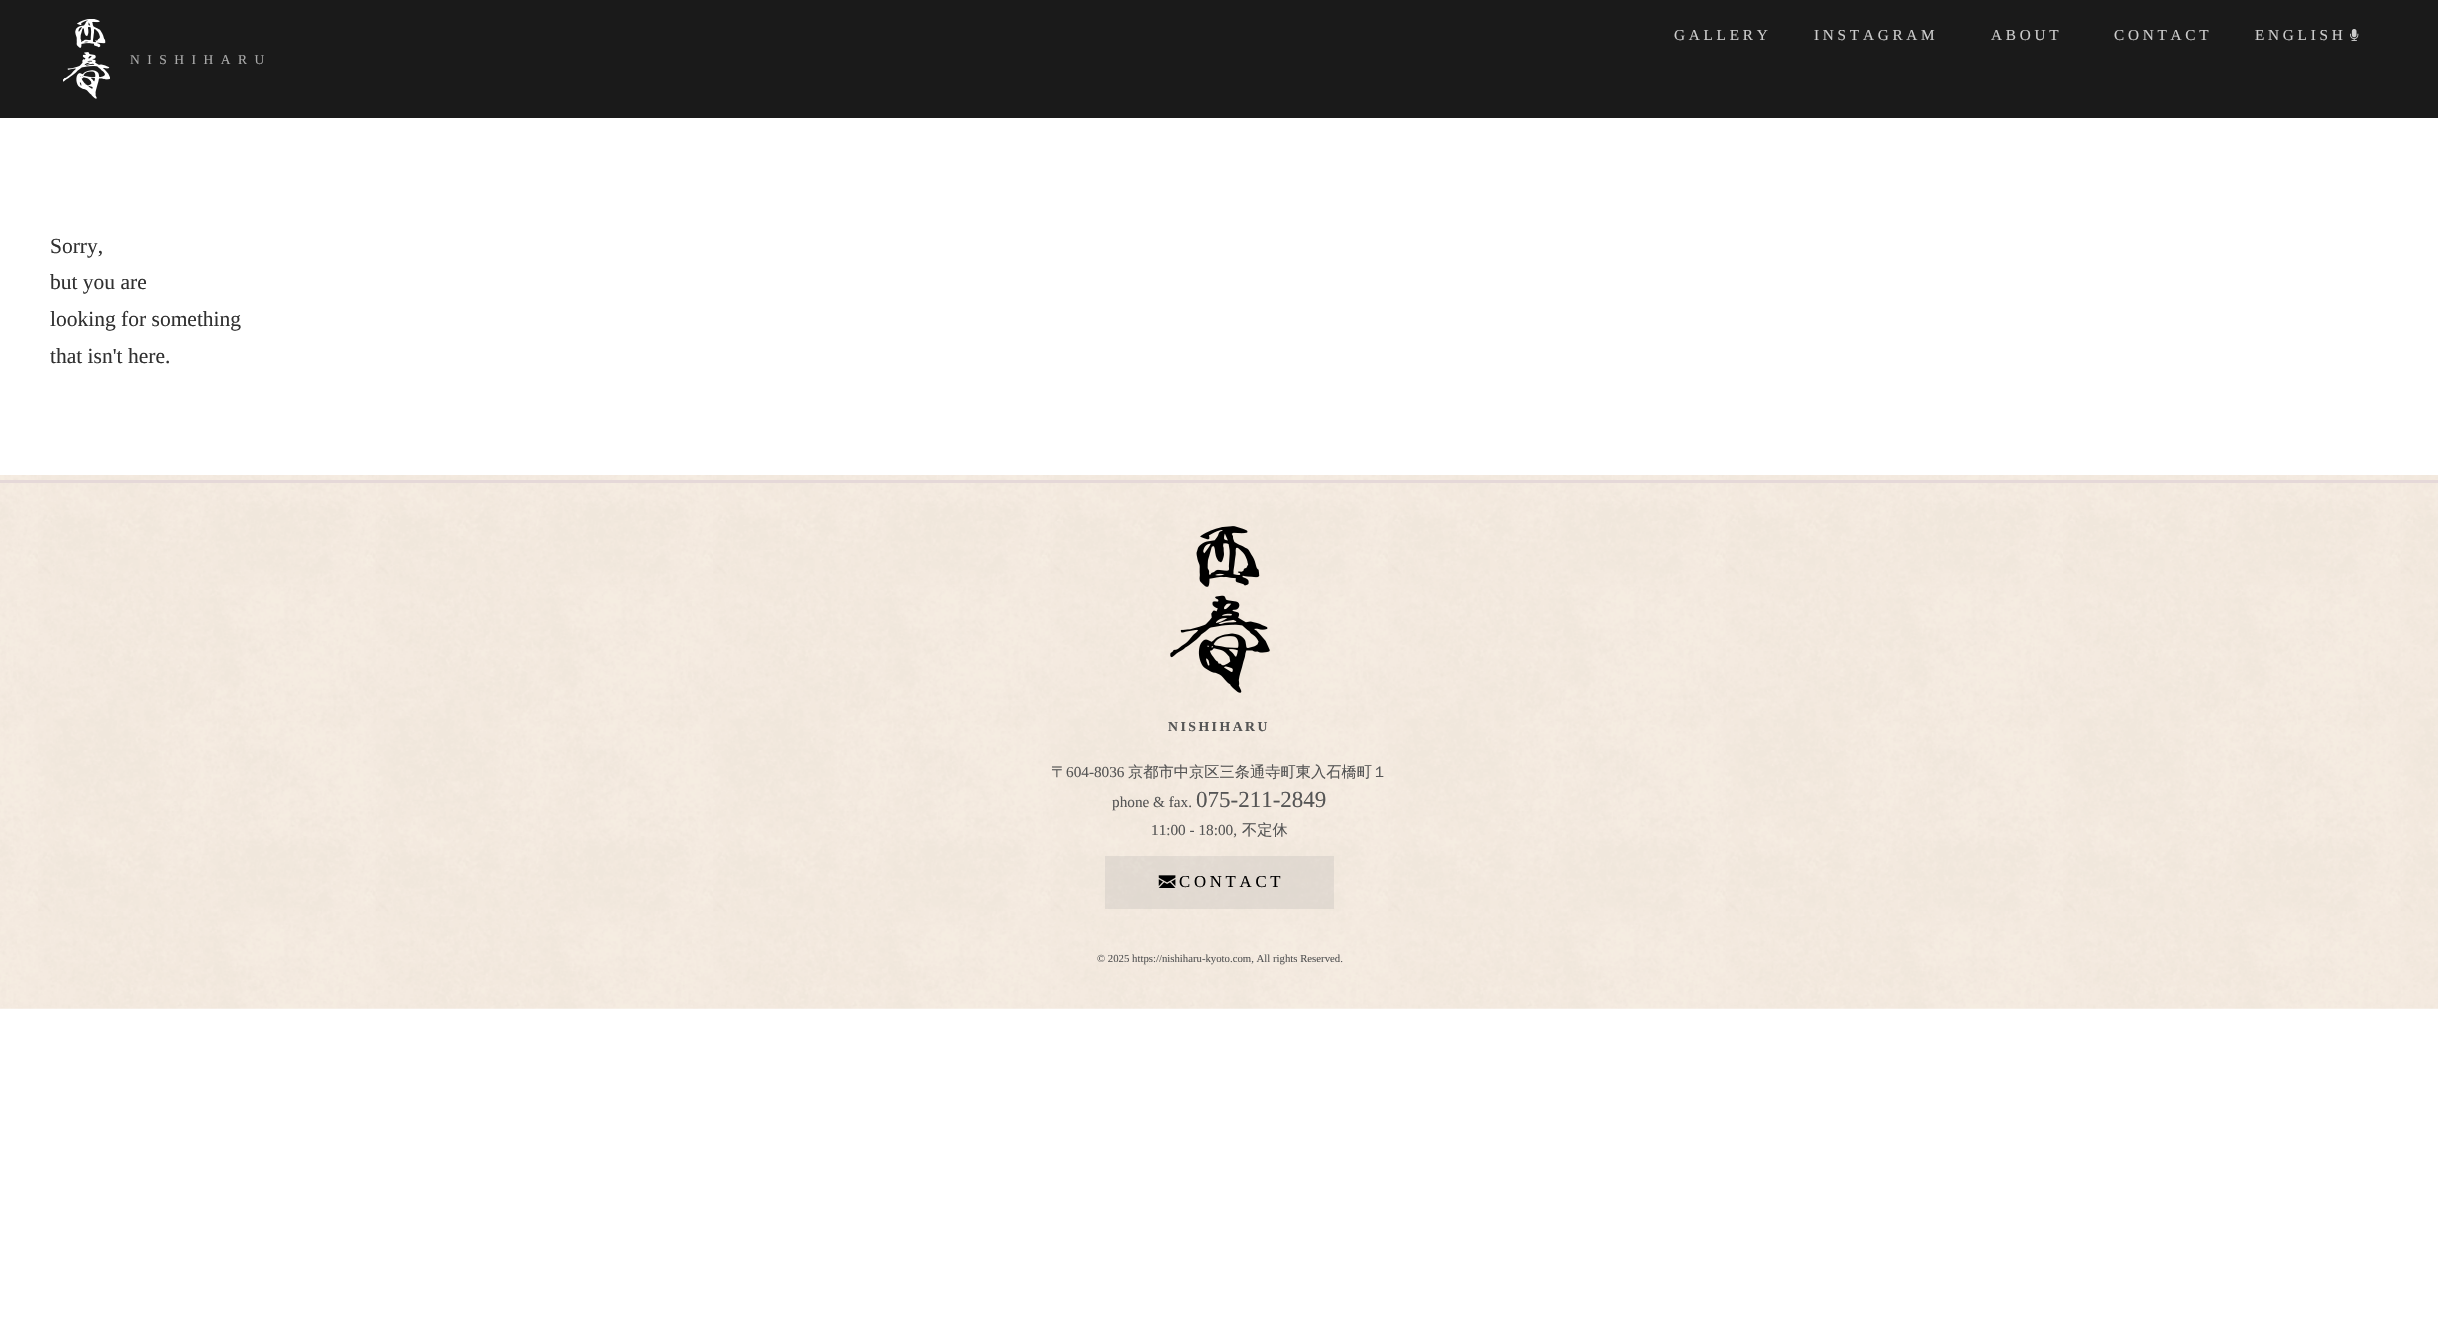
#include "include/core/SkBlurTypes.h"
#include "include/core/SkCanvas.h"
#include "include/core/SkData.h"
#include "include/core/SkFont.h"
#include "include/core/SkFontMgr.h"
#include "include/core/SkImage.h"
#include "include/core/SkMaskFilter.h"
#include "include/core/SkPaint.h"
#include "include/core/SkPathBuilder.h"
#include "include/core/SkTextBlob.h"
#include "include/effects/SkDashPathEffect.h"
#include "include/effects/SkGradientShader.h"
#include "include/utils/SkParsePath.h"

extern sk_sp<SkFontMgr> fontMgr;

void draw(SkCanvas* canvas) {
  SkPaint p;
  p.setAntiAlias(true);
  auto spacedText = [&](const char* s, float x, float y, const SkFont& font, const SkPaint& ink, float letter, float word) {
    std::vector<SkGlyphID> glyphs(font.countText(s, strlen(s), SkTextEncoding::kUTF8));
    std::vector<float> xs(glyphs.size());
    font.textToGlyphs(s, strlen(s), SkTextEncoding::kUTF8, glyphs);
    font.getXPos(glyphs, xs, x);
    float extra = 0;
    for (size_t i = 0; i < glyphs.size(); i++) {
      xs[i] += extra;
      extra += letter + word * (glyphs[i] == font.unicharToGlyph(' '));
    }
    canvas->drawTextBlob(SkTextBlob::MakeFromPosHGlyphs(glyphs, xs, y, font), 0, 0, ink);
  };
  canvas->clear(SK_ColorWHITE);
  p.setColor(SkColorSetRGB(26, 26, 26));
  canvas->drawRect(SkRect::MakeLTRB(0, 0, 2438, 118), p);
  canvas->drawImageRect(SkImages::DeferredFromEncodedData(SkData::MakeFromFileName("images/1.png")), SkRect::MakeLTRB(2350, 29, 2359, 41), SkSamplingOptions());
  canvas->drawImageRect(SkImages::DeferredFromEncodedData(SkData::MakeFromFileName("images/2.png")), SkRect::MakeLTRB(63, 19, 110, 99), SkSamplingOptions());
  canvas->drawImageRect(SkImages::DeferredFromEncodedData(SkData::MakeFromFileName("images/3.png")), SkRect::MakeLTRB(0, 475, 2438, 1009), SkSamplingOptions());
  p.setColor(SkColorSetRGB(229, 216, 216));
  canvas->drawRect(SkRect::MakeLTRB(0, 480, 2438, 483), p);
  canvas->drawImageRect(SkImages::DeferredFromEncodedData(SkData::MakeFromFileName("images/4.png")), SkRect::MakeLTRB(1170, 526, 1270, 693), SkSamplingOptions());
  p.setColor(SkColorSetARGB(51, 160, 160, 160));
  canvas->drawRect(SkRect::MakeLTRB(1105, 856, 1334, 909), p);
  canvas->drawImageRect(SkImages::DeferredFromEncodedData(SkData::MakeFromFileName("images/5.png")), SkRect::MakeLTRB(1158, 875, 1176, 888), SkSamplingOptions());
  SkFont font1(fontMgr->matchFamilyStyle("Liberation Serif", SkFontStyle::Normal()), 15.25f);
  font1.setSubpixel(true);
  p.setColor(SkColorSetRGB(204, 204, 204));
  spacedText("GALLERY", 1674, 40, font1, p, 3.75f, 0);
  spacedText("INSTAGRAM", 1814, 40, font1, p, 3.75f, 0);
  spacedText("ABOUT", 1991, 40, font1, p, 3.75f, 0);
  spacedText("CONTACT", 2114, 40, font1, p, 3.75f, 0);
  spacedText("ENGLISH", 2255, 40, font1, p, 3.75f, 0);
  SkFont font2(fontMgr->matchFamilyStyle("Liberation Serif", SkFontStyle::Normal()), 13.5f);
  font2.setSubpixel(true);
  p.setColor(SkColorSetRGB(170, 170, 170));
  spacedText("NISHIHARU", 130, 64, font2, p, 7.5f, 0);
  SkFont font3(fontMgr->matchFamilyStyle("Liberation Serif", SkFontStyle::Normal()), 21.5f);
  font3.setSubpixel(true);
  p.setColor(SkColorSetRGB(49, 49, 49));
  canvas->drawString("Sorry,", 50, 253, font3, p);
  canvas->drawString("but you are", 50, 289, font3, p);
  canvas->drawString("looking for something", 50, 326, font3, p);
  canvas->drawString("that isn't here.", 50, 363, font3, p);
  SkFont font4(fontMgr->matchFamilyStyle("Liberation Serif", SkFontStyle::Bold()), 13.75f);
  font4.setSubpixel(true);
  p.setColor(SkColorSetRGB(85, 85, 85));
  spacedText("NISHIHARU", 1168, 731, font4, p, 2.5f, 0);
  SkFont font5(fontMgr->matchFamilyStyle("WenQuanYi Zen Hei", SkFontStyle(500, SkFontStyle::kNormal_Width, SkFontStyle::kUpright_Slant)), 15.25f);
  font5.setSubpixel(true);
  canvas->drawString("〒", 1051, 777, font5, p);
  canvas->drawString("604-8036", 1066, 777, font1, p);
  canvas->drawString("京都市中京区三条通寺町東入石橋町１", 1128, 777, font5, p);
  canvas->drawString("phone & fax.", 1112, 807, font1, p);
  SkFont font6(fontMgr->matchFamilyStyle("Liberation Serif", SkFontStyle::Normal()), 23);
  font6.setSubpixel(true);
  canvas->drawString("075-211-2849", 1196, 807, font6, p);
  canvas->drawString("11:00 - 18:00,", 1151, 835, font1, p);
  canvas->drawString("不定休", 1242, 835, font5, p);
  SkFont font7(fontMgr->matchFamilyStyle("Liberation Serif", SkFontStyle::Normal()), 16.75f);
  font7.setSubpixel(true);
  p.setColor(SK_ColorBLACK);
  spacedText("CONTACT", 1179, 887, font7, p, 3.75f, 0);
  SkFont font8(fontMgr->matchFamilyStyle("Liberation Serif", SkFontStyle::Normal()), 10.75f);
  font8.setSubpixel(true);
  p.setColor(SkColorSetRGB(85, 85, 85));
  canvas->drawString("© 2025 https://nishiharu-kyoto.com, All rights Reserved.", 1097, 962, font8, p);
}
